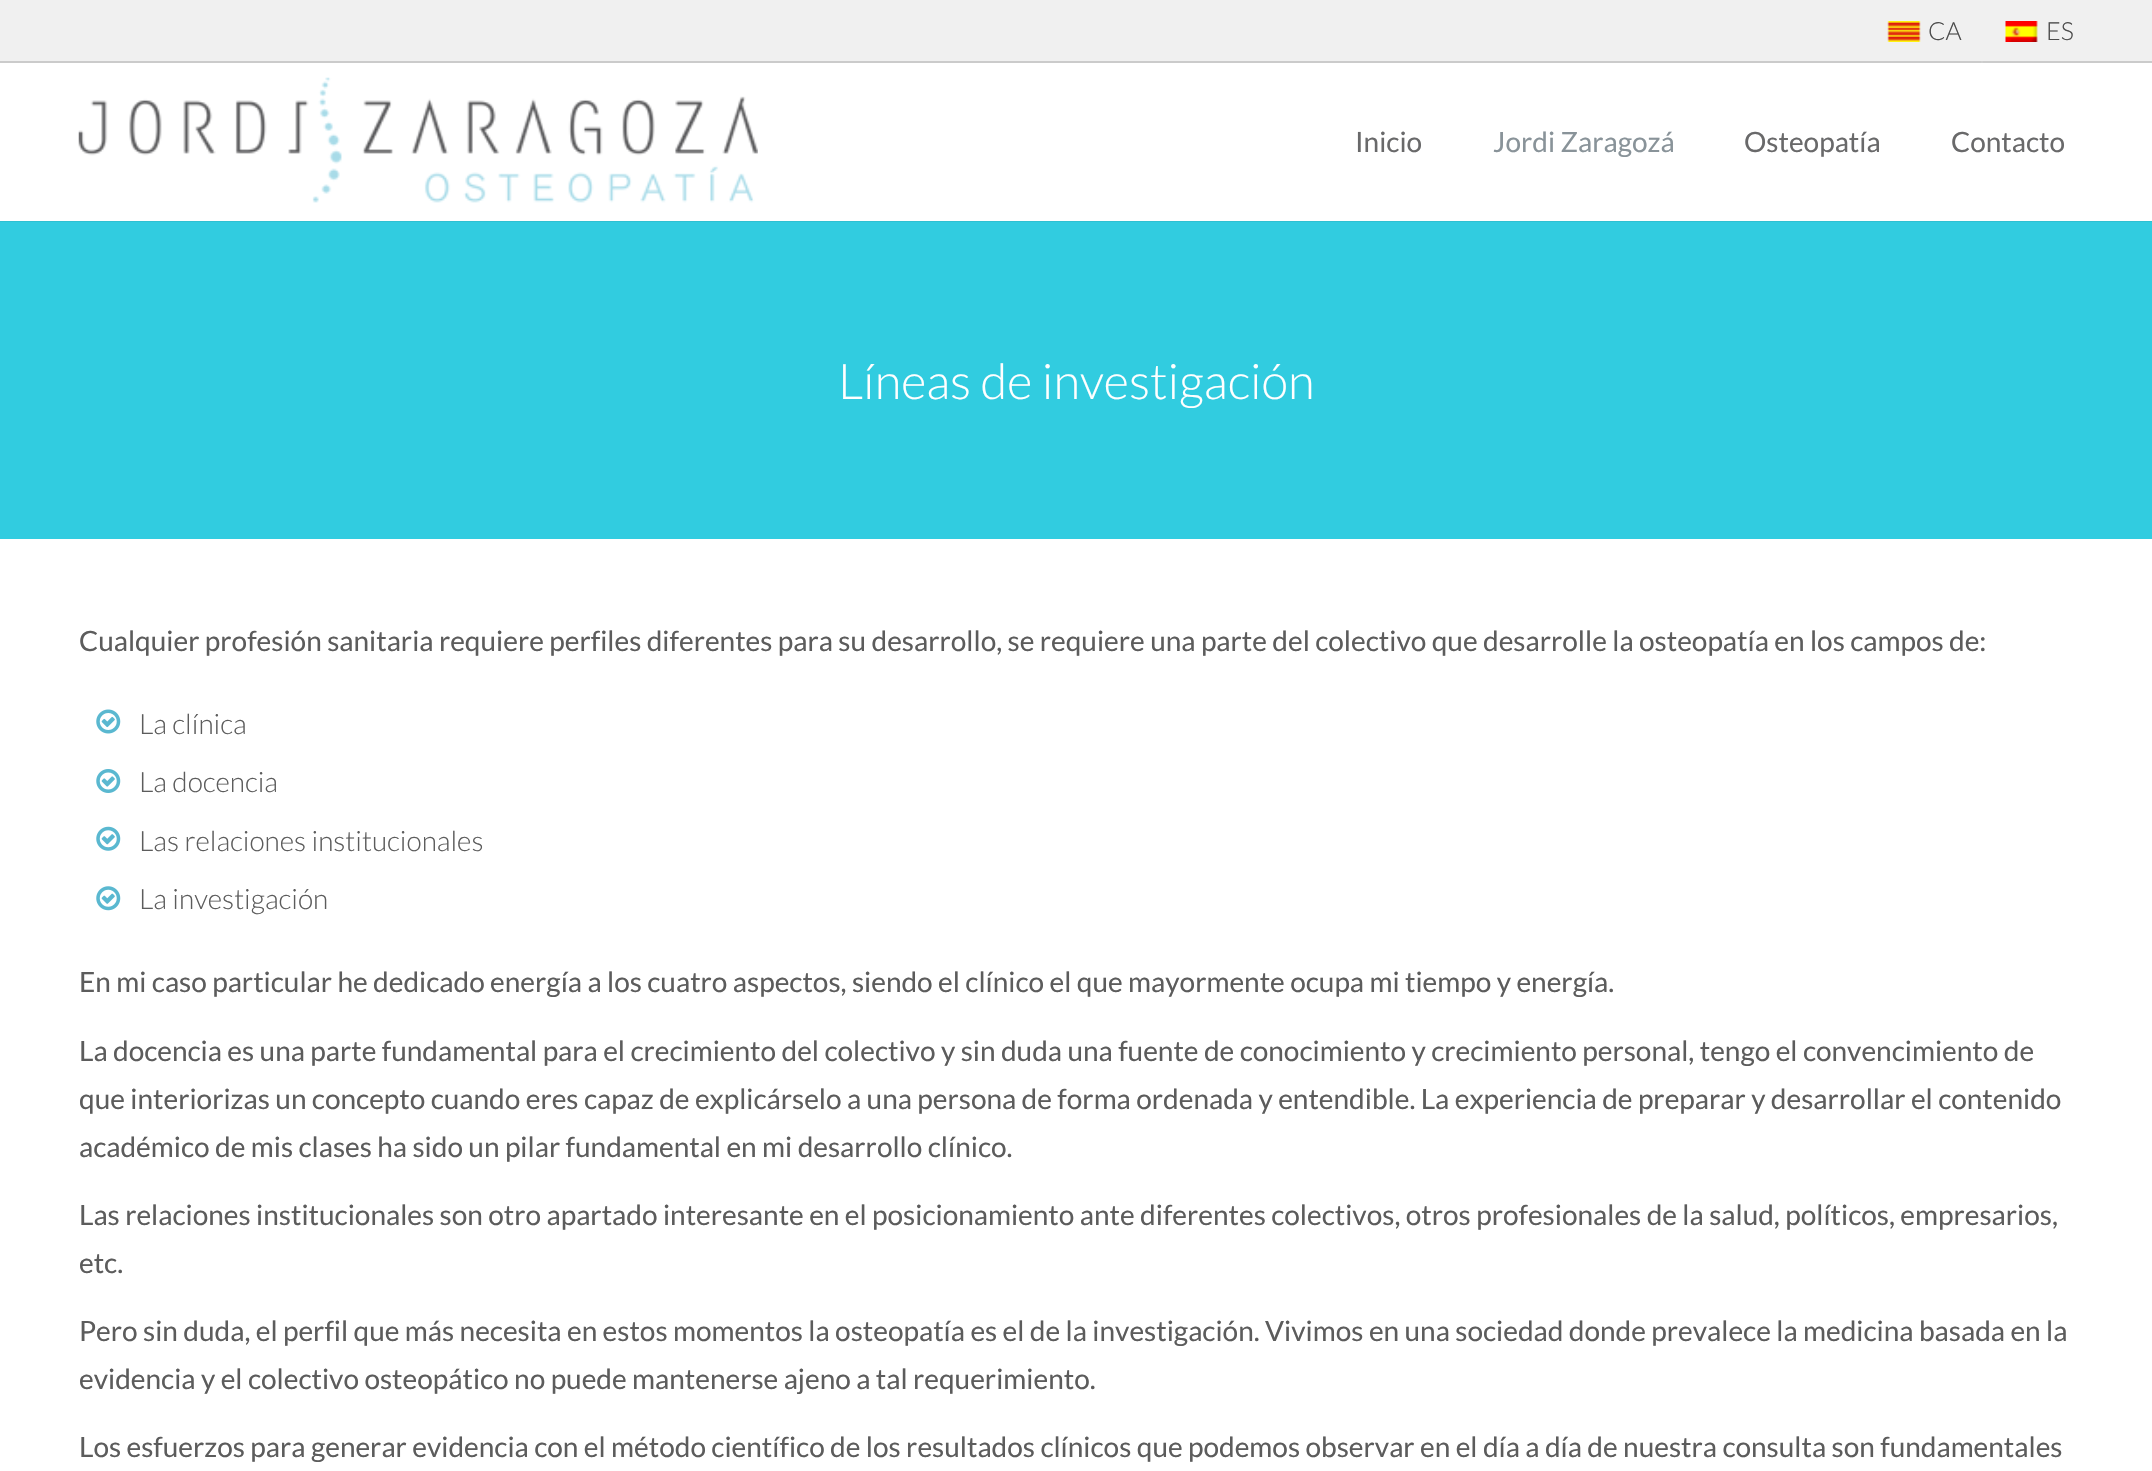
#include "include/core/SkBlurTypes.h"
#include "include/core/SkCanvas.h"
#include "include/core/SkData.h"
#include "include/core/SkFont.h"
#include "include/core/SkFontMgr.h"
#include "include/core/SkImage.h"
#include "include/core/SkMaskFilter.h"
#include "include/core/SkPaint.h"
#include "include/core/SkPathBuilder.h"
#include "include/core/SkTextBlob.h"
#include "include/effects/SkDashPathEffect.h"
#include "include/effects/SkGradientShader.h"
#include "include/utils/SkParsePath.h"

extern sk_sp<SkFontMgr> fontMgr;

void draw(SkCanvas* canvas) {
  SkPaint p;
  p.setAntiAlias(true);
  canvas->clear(SK_ColorWHITE);
  p.setColor(SkColorSetRGB(240, 240, 240));
  canvas->drawRect(SkRect::MakeLTRB(0, 0, 2152, 61), p);
  p.setColor(SkColorSetRGB(242, 242, 242));
  canvas->drawRect(SkRect::MakeLTRB(1981, 61, 1983, 63), p);
  p.setColor(SkColorSetRGB(216, 216, 216));
  canvas->drawRect(SkRect::MakeLTRB(0, 61, 2152, 63), p);
  p.setColor(SkColorSetRGB(220, 220, 220));
  canvas->drawRect(SkRect::MakeLTRB(1981, 61, 1983, 63), p);
  canvas->drawImageRect(SkImages::DeferredFromEncodedData(SkData::MakeFromFileName("images/1.png")), SkRect::MakeLTRB(1887, 21, 1921, 42), SkSamplingOptions());
  canvas->drawImageRect(SkImages::DeferredFromEncodedData(SkData::MakeFromFileName("images/2.png")), SkRect::MakeLTRB(2005, 21, 2038, 42), SkSamplingOptions());
  p.setColor(SkColorSetARGB(15, 0, 0, 0));
  canvas->drawPath(SkPathBuilder().moveTo(0, 61).lineTo(0, 63).lineTo(2152, 63).lineTo(2152, 219).lineTo(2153, 219).lineTo(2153, 61).close().detach(), p);
  p.setColor(SkColorSetRGB(49, 204, 224));
  canvas->drawRect(SkRect::MakeLTRB(0, 221, 2152, 539), p);
  p.setColor(SkColorSetARGB(15, 0, 0, 0));
  canvas->drawPath(SkPathBuilder().moveTo(0, 220).lineTo(0, 222).lineTo(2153, 222).lineTo(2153, 65).lineTo(2152, 65).lineTo(2152, 220).close().detach(), p);
  p.setColor(SK_ColorWHITE);
  canvas->drawRect(SkRect::MakeLTRB(0, 220, 2152, 221), p);
  canvas->drawImageRect(SkImages::DeferredFromEncodedData(SkData::MakeFromFileName("images/3.png")), SkRect::MakeLTRB(78, 77, 758, 203), SkSamplingOptions());
  canvas->drawImageRect(SkImages::DeferredFromEncodedData(SkData::MakeFromFileName("images/4.png")), SkRect::MakeLTRB(96, 709, 121, 734), SkSamplingOptions());
  canvas->drawImageRect(SkImages::DeferredFromEncodedData(SkData::MakeFromFileName("images/5.png")), SkRect::MakeLTRB(96, 769, 121, 793), SkSamplingOptions());
  canvas->drawImageRect(SkImages::DeferredFromEncodedData(SkData::MakeFromFileName("images/6.png")), SkRect::MakeLTRB(96, 826, 121, 851), SkSamplingOptions());
  canvas->drawImageRect(SkImages::DeferredFromEncodedData(SkData::MakeFromFileName("images/7.png")), SkRect::MakeLTRB(96, 886, 121, 911), SkSamplingOptions());
  SkFont font1(fontMgr->matchFamilyStyle("Lato", SkFontStyle(300, SkFontStyle::kNormal_Width, SkFontStyle::kUpright_Slant)), 25);
  font1.setSubpixel(true);
  p.setColor(SkColorSetRGB(76, 76, 76));
  canvas->drawString("CA", 1928, 40, font1, p);
  canvas->drawString("ES", 2046, 40, font1, p);
  SkFont font2(fontMgr->matchFamilyStyle("Lato", SkFontStyle::Normal()), 28);
  font2.setSubpixel(true);
  p.setColor(SkColorSetRGB(105, 105, 106));
  canvas->drawString("Inicio", 1355, 152, font2, p);
  p.setColor(SkColorSetRGB(137, 147, 153));
  canvas->drawString("Jordi Zaragozá", 1493, 152, font2, p);
  p.setColor(SkColorSetRGB(105, 105, 106));
  canvas->drawString("Osteopatía", 1744, 152, font2, p);
  canvas->drawString("Contacto", 1951, 152, font2, p);
  SkFont font3(fontMgr->matchFamilyStyle("Lato", SkFontStyle(300, SkFontStyle::kNormal_Width, SkFontStyle::kUpright_Slant)), 49);
  font3.setSubpixel(true);
  p.setColor(SK_ColorWHITE);
  canvas->drawString("Líneas de investigación", 838, 399, font3, p);
  p.setColor(SkColorSetRGB(92, 92, 92));
  canvas->drawString("Cualquier profesión sanitaria requiere perfiles diferentes para su desarrollo, se requiere una parte del colectivo que desarrolle la osteopatía en los campos de:", 79, 651, font2, p);
  SkFont font4(fontMgr->matchFamilyStyle("Lato", SkFontStyle(300, SkFontStyle::kNormal_Width, SkFontStyle::kUpright_Slant)), 28);
  font4.setSubpixel(true);
  canvas->drawString("La clínica", 139, 734, font4, p);
  canvas->drawString("La docencia", 139, 792, font4, p);
  canvas->drawString("Las relaciones institucionales", 139, 851, font4, p);
  canvas->drawString("La investigación", 139, 909, font4, p);
  canvas->drawString("En mi caso particular he dedicado energía a los cuatro aspectos, siendo el clínico el que mayormente ocupa mi tiempo y energía.", 79, 992, font2, p);
  canvas->drawString("La docencia es una parte fundamental para el crecimiento del colectivo y sin duda una fuente de conocimiento y crecimiento personal, tengo el convencimiento de", 79, 1061, font2, p);
  canvas->drawString("que interiorizas un concepto cuando eres capaz de explicárselo a una persona de forma ordenada y entendible. La experiencia de preparar y desarrollar el contenido", 79, 1109, font2, p);
  canvas->drawString("académico de mis clases ha sido un pilar fundamental en mi desarrollo clínico.", 79, 1157, font2, p);
  canvas->drawString("Las relaciones institucionales son otro apartado interesante en el posicionamiento ante diferentes colectivos, otros profesionales de la salud, políticos, empresarios,", 79, 1225, font2, p);
  canvas->drawString("etc.", 79, 1273, font2, p);
  canvas->drawString("Pero sin duda, el perfil que más necesita en estos momentos la osteopatía es el de la investigación. Vivimos en una sociedad donde prevalece la medicina basada en la", 79, 1341, font2, p);
  canvas->drawString("evidencia y el colectivo osteopático no puede mantenerse ajeno a tal requerimiento.", 79, 1389, font2, p);
  canvas->drawString("Los esfuerzos para generar evidencia con el método científico de los resultados clínicos que podemos observar en el día a día de nuestra consulta son fundamentales", 79, 1457, font2, p);
}
